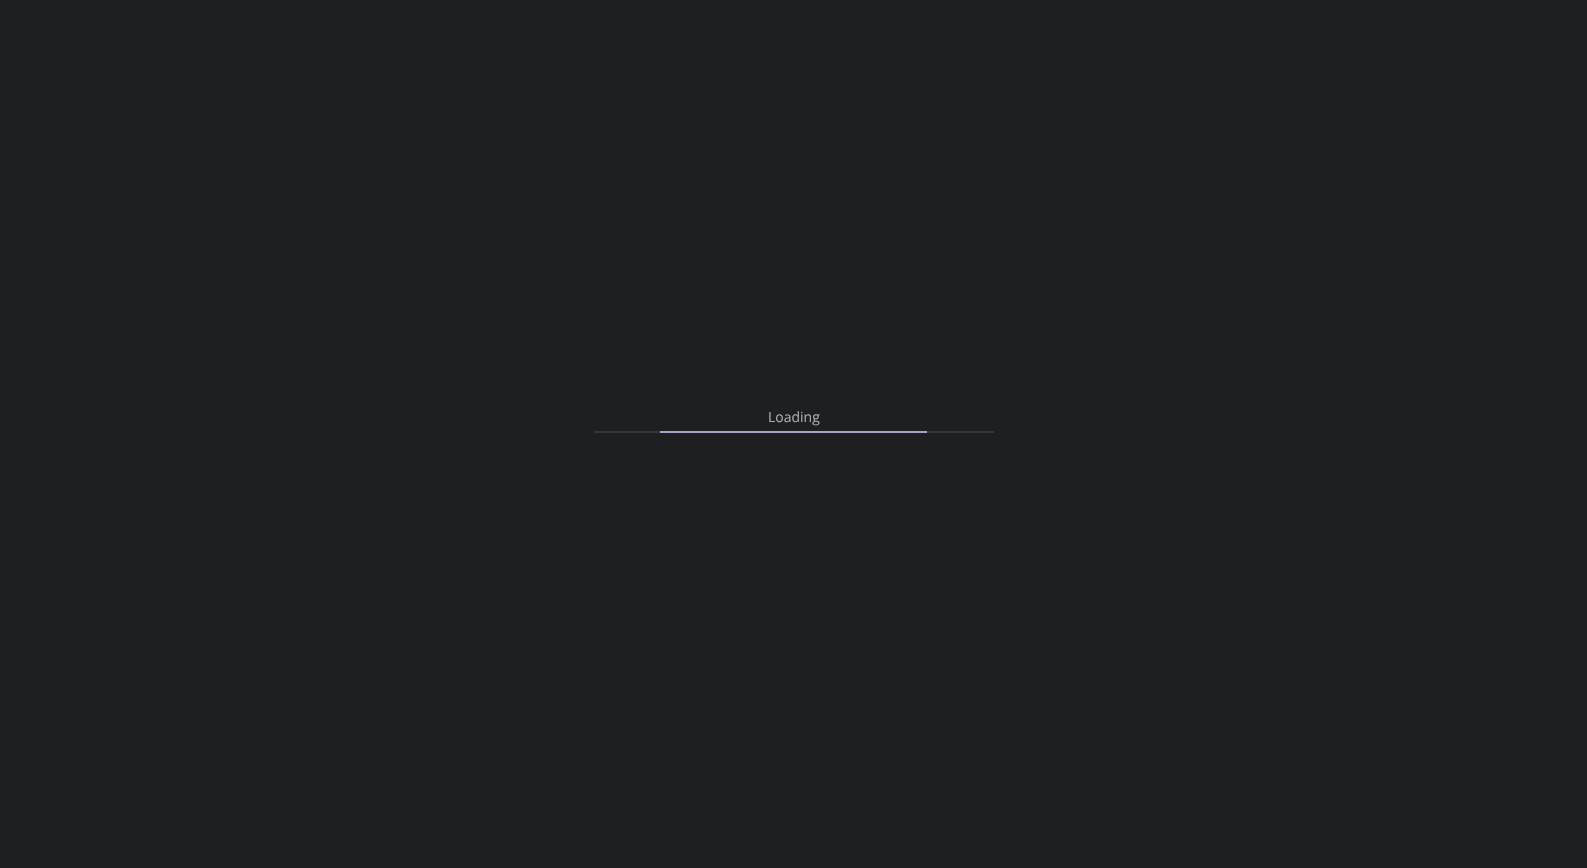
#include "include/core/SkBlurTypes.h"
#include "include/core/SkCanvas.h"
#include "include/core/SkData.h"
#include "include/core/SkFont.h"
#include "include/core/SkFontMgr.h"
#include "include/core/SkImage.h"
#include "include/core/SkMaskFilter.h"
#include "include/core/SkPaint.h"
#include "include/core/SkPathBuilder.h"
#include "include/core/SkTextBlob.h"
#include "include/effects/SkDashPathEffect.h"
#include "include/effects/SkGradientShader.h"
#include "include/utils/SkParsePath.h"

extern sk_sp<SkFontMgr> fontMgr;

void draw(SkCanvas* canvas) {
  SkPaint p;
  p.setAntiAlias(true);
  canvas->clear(SkColorSetRGB(29, 31, 33));
  p.setColor(SkColorSetRGB(52, 54, 56));
  canvas->drawRect(SkRect::MakeLTRB(594, 431, 994, 433), p);
  p.setColor(SkColorSetRGB(170, 160, 200));
  canvas->drawRect(SkRect::MakeLTRB(660, 431, 927, 433), p);
  SkFont font1(fontMgr->matchFamilyStyle("Open Sans", SkFontStyle::Normal()), 14);
  font1.setSubpixel(true);
  p.setColor(SkColorSetRGB(168, 171, 173));
  canvas->drawString("Loading", 768, 422, font1, p);
}
